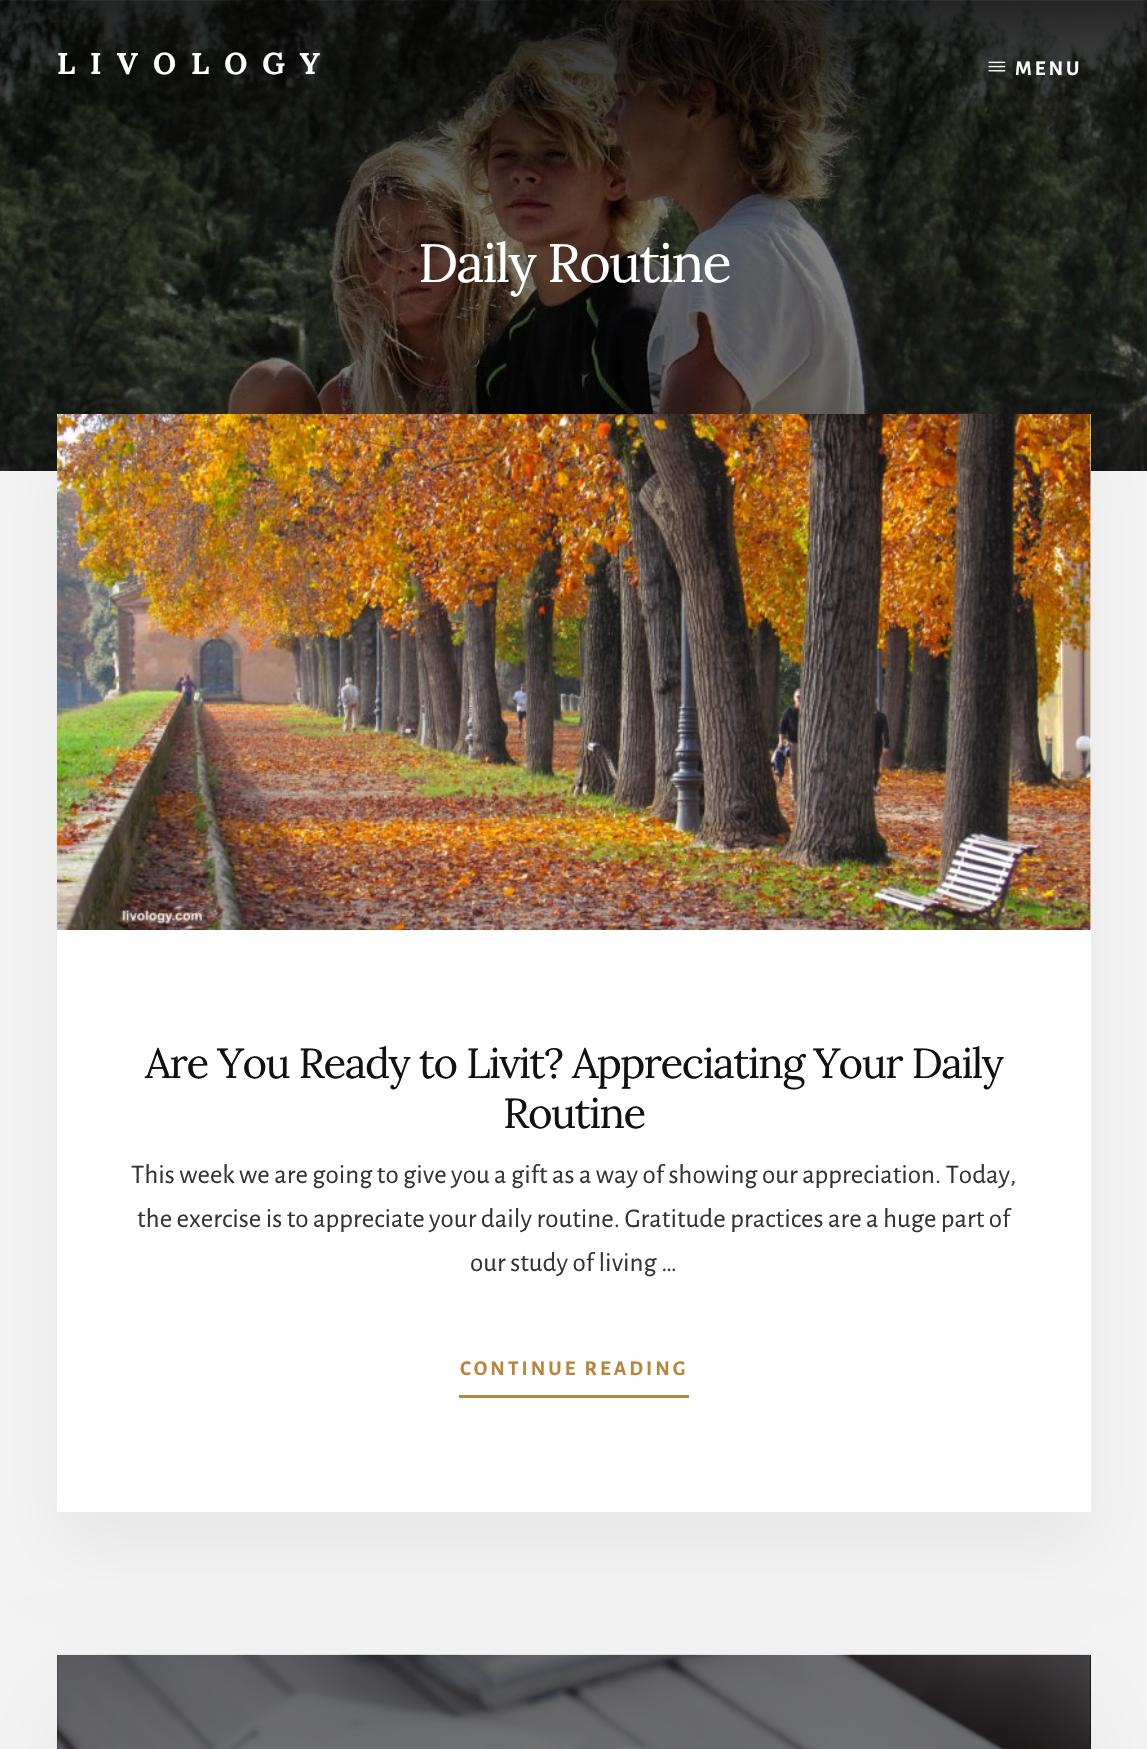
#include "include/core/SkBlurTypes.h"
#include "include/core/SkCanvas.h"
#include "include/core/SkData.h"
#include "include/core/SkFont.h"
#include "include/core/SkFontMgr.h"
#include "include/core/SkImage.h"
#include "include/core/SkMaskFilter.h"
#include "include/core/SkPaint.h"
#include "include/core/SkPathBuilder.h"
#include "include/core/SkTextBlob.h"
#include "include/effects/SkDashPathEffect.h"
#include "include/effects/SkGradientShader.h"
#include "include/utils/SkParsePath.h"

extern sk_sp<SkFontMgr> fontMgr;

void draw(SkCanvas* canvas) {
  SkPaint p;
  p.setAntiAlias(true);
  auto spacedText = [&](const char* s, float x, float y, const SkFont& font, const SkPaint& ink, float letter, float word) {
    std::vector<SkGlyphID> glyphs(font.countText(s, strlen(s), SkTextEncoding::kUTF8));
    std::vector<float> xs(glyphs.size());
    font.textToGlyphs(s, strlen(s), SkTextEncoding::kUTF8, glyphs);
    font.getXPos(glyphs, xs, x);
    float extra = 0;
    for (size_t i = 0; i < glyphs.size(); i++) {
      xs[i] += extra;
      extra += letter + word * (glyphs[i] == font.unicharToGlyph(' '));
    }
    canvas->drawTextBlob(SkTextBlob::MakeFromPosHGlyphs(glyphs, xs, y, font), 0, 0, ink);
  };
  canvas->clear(SkColorSetRGB(244, 244, 244));
  canvas->drawImageRect(SkImages::DeferredFromEncodedData(SkData::MakeFromFileName("images/1.png")), SkRect::MakeLTRB(0, 0, 1147, 471), SkSamplingOptions());
  canvas->drawImageRect(SkImages::DeferredFromEncodedData(SkData::MakeFromFileName("images/2.png")), SkRect::MakeLTRB(988, 61, 1006, 72), SkSamplingOptions());
  p.setColor(SkColorSetARGB(13, 0, 0, 0));
  p.setMaskFilter(SkMaskFilter::MakeBlur(kNormal_SkBlurStyle, 30));
  canvas->drawRect(SkRect::MakeLTRB(57, 452, 1091, 1550), p);
  p.setMaskFilter(nullptr);
  p.setColor(SK_ColorWHITE);
  canvas->drawRect(SkRect::MakeLTRB(57, 414, 1091, 1512), p);
  canvas->drawImageRect(SkImages::DeferredFromEncodedData(SkData::MakeFromFileName("images/3.png")), SkRect::MakeLTRB(57, 414, 1091, 930), SkSamplingOptions());
  p.setColor(SkColorSetRGB(183, 133, 59));
  canvas->drawRect(SkRect::MakeLTRB(459, 1395, 689, 1398), p);
  p.setColor(SkColorSetARGB(13, 0, 0, 0));
  p.setMaskFilter(SkMaskFilter::MakeBlur(kNormal_SkBlurStyle, 45));
  canvas->drawRect(SkRect::MakeLTRB(57, 1692, 1091, 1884), p);
  p.setMaskFilter(nullptr);
  p.setColor(SkColorSetRGB(34, 34, 34));
  canvas->drawRect(SkRect::MakeLTRB(57, 1655, 1091, 1749), p);
  canvas->drawImageRect(SkImages::DeferredFromEncodedData(SkData::MakeFromFileName("images/4.png")), SkRect::MakeLTRB(57, 1654, 1091, 1749), SkSamplingOptions());
  p.setColor(SkColorSetARGB(140, 0, 0, 0));
  canvas->drawRect(SkRect::MakeLTRB(57, 1655, 1091, 1749), p);
  SkFont font1(fontMgr->matchFamilyStyle("Lora", SkFontStyle::Bold()), 30);
  font1.setSubpixel(true);
  p.setColor(SK_ColorWHITE);
  spacedText("LIVOLOGY", 57, 74, font1, p, 15, 0);
  SkFont font2(fontMgr->matchFamilyStyle("Alegreya Sans", SkFontStyle::Bold()), 21);
  font2.setSubpixel(true);
  spacedText("MENU", 1015, 75, font2, p, 3, 0);
  SkFont font3(fontMgr->matchFamilyStyle("Lora", SkFontStyle::Normal()), 54);
  font3.setSubpixel(true);
  spacedText("Daily Routine", 418, 282, font3, p, -1.9f, 0);
  SkFont font4(fontMgr->matchFamilyStyle("Lora", SkFontStyle::Normal()), 42);
  font4.setSubpixel(true);
  p.setColor(SkColorSetRGB(17, 17, 17));
  spacedText("Are You Ready to Livit? Appreciating Your Daily", 145, 1078, font4, p, -1.5f, 0);
  spacedText("Routine", 503, 1128, font4, p, -1.5f, 0);
  SkFont font5(fontMgr->matchFamilyStyle("Alegreya Sans", SkFontStyle::Normal()), 27);
  font5.setSubpixel(true);
  p.setColor(SkColorSetRGB(51, 51, 51));
  canvas->drawString("This week we are going to give you a gift as a way of showing our appreciation. Today,", 131, 1183, font5, p);
  canvas->drawString("the exercise is to appreciate your daily routine. Gratitude practices are a huge part of", 137, 1227, font5, p);
  canvas->drawString("our study of living …", 470, 1271, font5, p);
  p.setColor(SkColorSetRGB(183, 133, 59));
  spacedText("CONTINUE READING", 460, 1375, font2, p, 3, 0);
}
